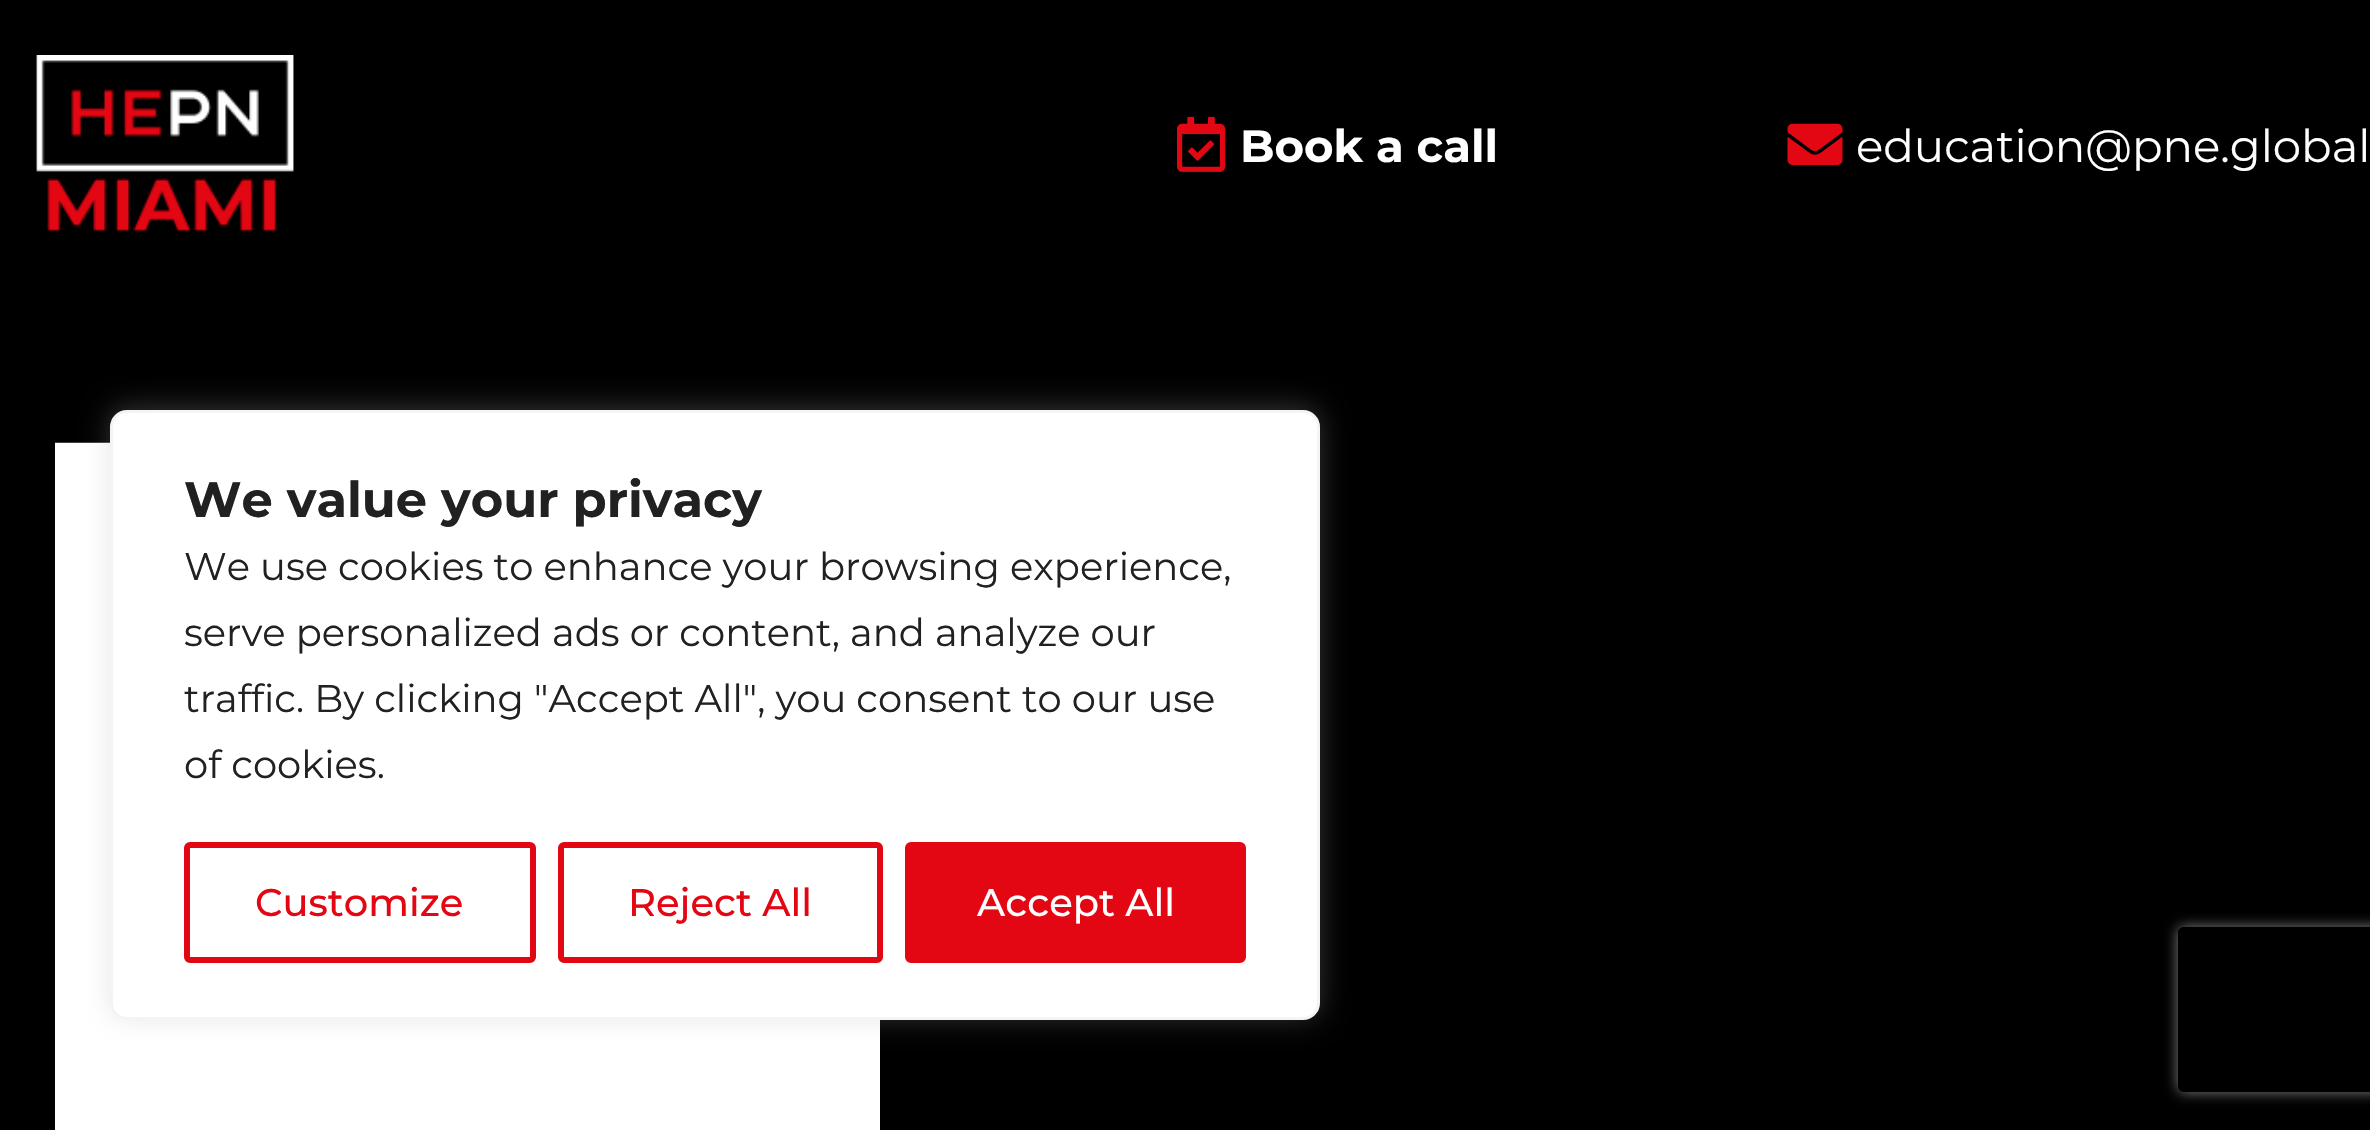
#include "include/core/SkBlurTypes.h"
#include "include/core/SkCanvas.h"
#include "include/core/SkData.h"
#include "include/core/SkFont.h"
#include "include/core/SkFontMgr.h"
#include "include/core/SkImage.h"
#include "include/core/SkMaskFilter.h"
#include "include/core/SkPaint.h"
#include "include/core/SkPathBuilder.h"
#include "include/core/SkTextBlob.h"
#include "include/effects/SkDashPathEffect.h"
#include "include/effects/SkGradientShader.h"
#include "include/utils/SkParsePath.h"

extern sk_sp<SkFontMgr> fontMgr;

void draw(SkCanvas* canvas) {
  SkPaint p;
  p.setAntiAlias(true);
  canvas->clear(SK_ColorBLACK);
  canvas->drawImageRect(SkImages::DeferredFromEncodedData(SkData::MakeFromFileName("images/1.png")), SkRect::MakeLTRB(36, 55, 294, 233), SkSamplingOptions());
  canvas->drawImageRect(SkImages::DeferredFromEncodedData(SkData::MakeFromFileName("images/2.png")), SkRect::MakeLTRB(1177, 116, 1226, 172), SkSamplingOptions());
  canvas->drawImageRect(SkImages::DeferredFromEncodedData(SkData::MakeFromFileName("images/3.png")), SkRect::MakeLTRB(1787, 123, 1843, 165), SkSamplingOptions());
  canvas->drawImageRect(SkImages::DeferredFromEncodedData(SkData::MakeFromFileName("images/4.png")), SkRect::MakeLTRB(55, 442, 880, 1130), SkSamplingOptions());
  p.setColor(SkColorSetARGB(77, 172, 171, 171));
  p.setMaskFilter(SkMaskFilter::MakeBlur(kNormal_SkBlurStyle, 14));
  canvas->drawRoundRect(SkRect::MakeLTRB(110, 407, 1320, 1018), 17, 17, p);
  p.setMaskFilter(nullptr);
  p.setColor(SK_ColorWHITE);
  canvas->drawRoundRect(SkRect::MakeLTRB(111.5f, 411.5f, 1318.5f, 1018.5f), 15.5f, 15.5f, p);
  p.setStyle(SkPaint::kStroke_Style);
  p.setStrokeWidth(3);
  p.setColor(SkColorSetRGB(244, 244, 244));
  canvas->drawRoundRect(SkRect::MakeLTRB(111.5f, 411.5f, 1318.5f, 1018.5f), 15.5f, 15.5f, p);
  p.setStrokeWidth(6);
  p.setColor(SkColorSetRGB(227, 6, 19));
  canvas->drawRoundRect(SkRect::MakeLTRB(187, 845, 533, 960), 3, 3, p);
  canvas->drawRoundRect(SkRect::MakeLTRB(561, 845, 880, 960), 3, 3, p);
  p.setStyle(SkPaint::kFill_Style);
  canvas->drawRoundRect(SkRect::MakeLTRB(908, 845, 1243, 960), 3, 3, p);
  p.setStyle(SkPaint::kStroke_Style);
  canvas->drawRoundRect(SkRect::MakeLTRB(908, 845, 1243, 960), 3, 3, p);
  canvas->save();
  canvas->clipPath(SkPathBuilder(SkPathFillType::kEvenOdd).moveTo(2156, 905).lineTo(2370, 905).lineTo(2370, 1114).lineTo(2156, 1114).close().moveTo(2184, 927).lineTo(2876, 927).cubicTo(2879.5f, 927, 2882, 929.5f, 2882, 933).lineTo(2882, 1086).cubicTo(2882, 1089.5f, 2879.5f, 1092, 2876, 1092).lineTo(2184, 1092).cubicTo(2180.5f, 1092, 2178, 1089.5f, 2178, 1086).lineTo(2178, 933).cubicTo(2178, 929.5f, 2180.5f, 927, 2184, 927).close().detach(), true);
  p.setStyle(SkPaint::kFill_Style);
  p.setColor(SkColorSetRGB(128, 128, 128));
  p.setMaskFilter(SkMaskFilter::MakeBlur(kNormal_SkBlurStyle, 7));
  canvas->drawRoundRect(SkRect::MakeLTRB(2178, 927, 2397, 1092), 6, 6, p);
  p.setMaskFilter(nullptr);
  canvas->restore();
  SkFont font1(fontMgr->matchFamilyStyle("Montserrat", SkFontStyle::Bold()), 45.1f);
  font1.setSubpixel(true);
  p.setColor(SK_ColorWHITE);
  canvas->drawString("Book a call", 1240, 162, font1, p);
  SkFont font2(fontMgr->matchFamilyStyle("Montserrat", SkFontStyle::Normal()), 45.1f);
  font2.setSubpixel(true);
  canvas->drawString("education@pne.global", 1856, 162, font2, p);
  SkFont font3(fontMgr->matchFamilyStyle("Montserrat", SkFontStyle::Bold()), 49.5f);
  font3.setSubpixel(true);
  p.setColor(SkColorSetRGB(33, 33, 33));
  canvas->drawString("We value your privacy", 184, 517, font3, p);
  SkFont font4(fontMgr->matchFamilyStyle("Montserrat", SkFontStyle::Normal()), 38.5f);
  font4.setSubpixel(true);
  canvas->drawString("We use cookies to enhance your browsing experience,", 184, 580, font4, p);
  canvas->drawString("serve personalized ads or content, and analyze our", 184, 646, font4, p);
  canvas->drawString("traffic. By clicking \"Accept All\", you consent to our use", 184, 712, font4, p);
  canvas->drawString("of cookies.", 184, 778, font4, p);
  SkFont font5(fontMgr->matchFamilyStyle("Montserrat", SkFontStyle(500, SkFontStyle::kNormal_Width, SkFontStyle::kUpright_Slant)), 38.5f);
  font5.setSubpixel(true);
  p.setColor(SkColorSetRGB(227, 6, 19));
  canvas->drawString("Customize", 255, 916, font5, p);
  canvas->drawString("Reject All", 628, 916, font5, p);
  p.setColor(SK_ColorWHITE);
  canvas->drawString("Accept All", 977, 916, font5, p);
}
